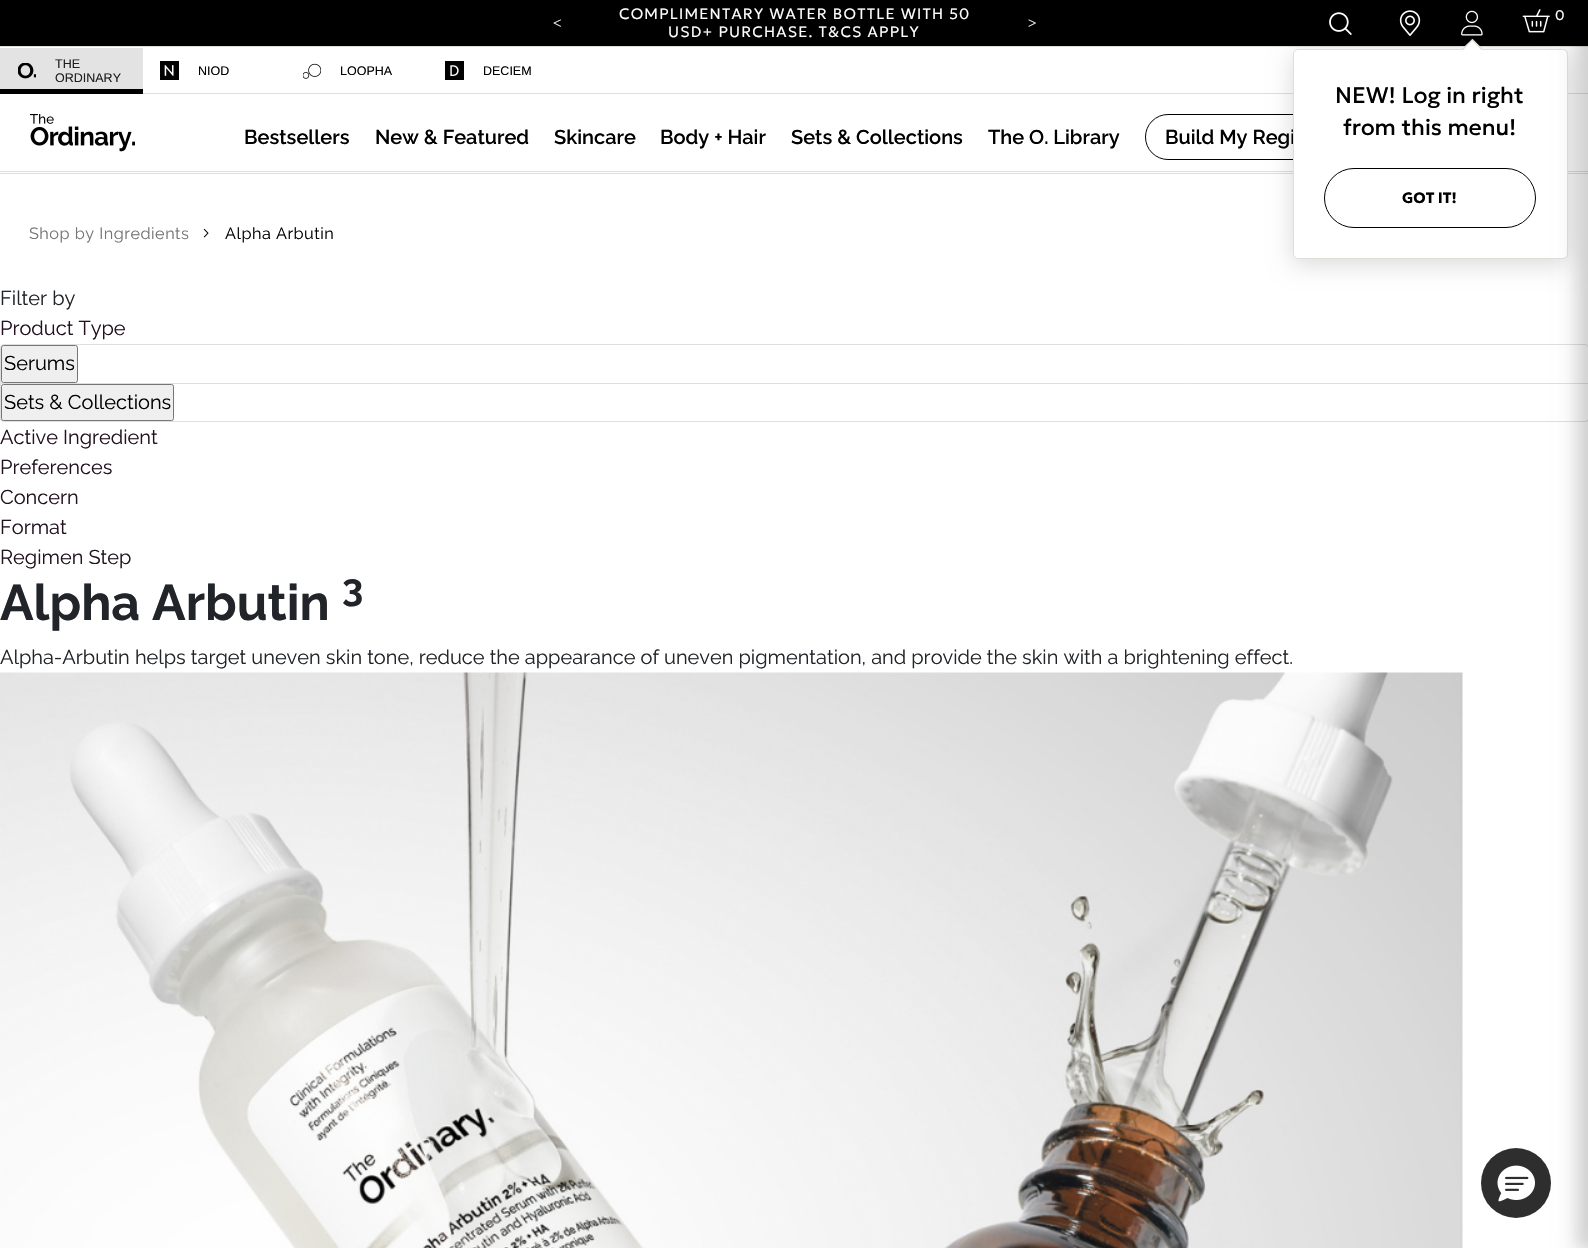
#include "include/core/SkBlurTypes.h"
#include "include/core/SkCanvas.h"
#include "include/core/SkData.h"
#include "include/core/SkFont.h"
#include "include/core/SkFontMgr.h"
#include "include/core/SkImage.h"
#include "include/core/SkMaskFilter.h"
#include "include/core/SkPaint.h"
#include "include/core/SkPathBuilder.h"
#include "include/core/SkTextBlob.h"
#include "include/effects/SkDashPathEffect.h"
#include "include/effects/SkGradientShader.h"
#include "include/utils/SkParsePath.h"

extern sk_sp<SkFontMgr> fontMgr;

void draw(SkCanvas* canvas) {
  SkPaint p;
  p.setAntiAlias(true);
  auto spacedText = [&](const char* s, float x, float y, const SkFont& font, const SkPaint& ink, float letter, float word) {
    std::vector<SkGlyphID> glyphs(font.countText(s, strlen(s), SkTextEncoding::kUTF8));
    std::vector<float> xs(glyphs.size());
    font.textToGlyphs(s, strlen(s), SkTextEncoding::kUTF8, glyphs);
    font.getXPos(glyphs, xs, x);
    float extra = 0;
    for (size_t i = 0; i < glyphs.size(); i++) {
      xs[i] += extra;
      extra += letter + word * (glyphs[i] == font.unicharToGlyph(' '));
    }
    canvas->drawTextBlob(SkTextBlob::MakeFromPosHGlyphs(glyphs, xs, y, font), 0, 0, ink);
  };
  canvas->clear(SK_ColorWHITE);
  p.setColor(SkColorSetRGB(227, 227, 227));
  canvas->drawRect(SkRect::MakeLTRB(0, 48, 143, 89), p);
  p.setColor(SkColorSetRGB(225, 222, 217));
  canvas->drawRect(SkRect::MakeLTRB(0, 173, 1588, 174), p);
  p.setColor(SK_ColorBLACK);
  canvas->drawRect(SkRect::MakeLTRB(0, 0, 1588, 46), p);
  canvas->drawImageRect(SkImages::DeferredFromEncodedData(SkData::MakeFromFileName("images/1.png")), SkRect::MakeLTRB(1329, 12, 1352, 35), SkSamplingOptions());
  canvas->drawImageRect(SkImages::DeferredFromEncodedData(SkData::MakeFromFileName("images/2.png")), SkRect::MakeLTRB(1399, 10, 1421, 36), SkSamplingOptions());
  canvas->drawImageRect(SkImages::DeferredFromEncodedData(SkData::MakeFromFileName("images/3.png")), SkRect::MakeLTRB(1522, 9, 1550, 33), SkSamplingOptions());
  canvas->drawImageRect(SkImages::DeferredFromEncodedData(SkData::MakeFromFileName("images/4.png")), SkRect::MakeLTRB(1461, 10, 1483, 36), SkSamplingOptions());
  p.setColor(SkColorSetRGB(225, 222, 217));
  canvas->drawRect(SkRect::MakeLTRB(143, 93, 1588, 94), p);
  canvas->drawRect(SkRect::MakeLTRB(0, 46, 1588, 47), p);
  canvas->drawRect(SkRect::MakeLTRB(0, 171, 1588, 172), p);
  p.setStyle(SkPaint::kStroke_Style);
  p.setStrokeWidth(1);
  p.setColor(SK_ColorBLACK);
  canvas->drawRoundRect(SkRect::MakeLTRB(1145.5f, 114.5f, 1357.5f, 159.5f), 22.5f, 22.5f, p);
  p.setStyle(SkPaint::kFill_Style);
  p.setColor(SkColorSetARGB(38, 0, 0, 0));
  p.setMaskFilter(SkMaskFilter::MakeBlur(kNormal_SkBlurStyle, 12.5f));
  canvas->drawRoundRect(SkRect::MakeLTRB(1293, 54, 1568, 264), 5, 5, p);
  p.setMaskFilter(nullptr);
  canvas->drawImageRect(SkImages::DeferredFromEncodedData(SkData::MakeFromFileName("images/5.png")), SkRect::MakeLTRB(18, 63, 36, 79), SkSamplingOptions());
  p.setColor(SK_ColorBLACK);
  canvas->drawRect(SkRect::MakeLTRB(0, 89, 143, 94), p);
  canvas->drawImageRect(SkImages::DeferredFromEncodedData(SkData::MakeFromFileName("images/6.png")), SkRect::MakeLTRB(160, 61, 179, 80), SkSamplingOptions());
  canvas->drawImageRect(SkImages::DeferredFromEncodedData(SkData::MakeFromFileName("images/7.png")), SkRect::MakeLTRB(303, 63, 321, 79), SkSamplingOptions());
  canvas->drawImageRect(SkImages::DeferredFromEncodedData(SkData::MakeFromFileName("images/8.png")), SkRect::MakeLTRB(445, 61, 464, 80), SkSamplingOptions());
  canvas->drawImageRect(SkImages::DeferredFromEncodedData(SkData::MakeFromFileName("images/9.png")), SkRect::MakeLTRB(30, 114, 135, 152), SkSamplingOptions());
  canvas->drawImageRect(SkImages::DeferredFromEncodedData(SkData::MakeFromFileName("images/10.png")), SkRect::MakeLTRB(203, 228, 209, 238), SkSamplingOptions());
  p.setStyle(SkPaint::kStroke_Style);
  p.setColor(SkColorSetRGB(223, 223, 223));
  canvas->drawPath(SkPathBuilder().moveTo(4, 344.5f).lineTo(1585, 344.5f).cubicTo(1587, 344.5f, 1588.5f, 346, 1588.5f, 348).lineTo(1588.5f, 383.5f).lineTo(0.5f, 383.5f).lineTo(0.5f, 348).cubicTo(0.5f, 346, 2, 344.5f, 4, 344.5f).close().detach(), p);
  p.setStyle(SkPaint::kFill_Style);
  p.setColor(SkColorSetRGB(239, 239, 239));
  canvas->drawRoundRect(SkRect::MakeLTRB(1.5f, 345.5f, 77.5f, 382.5f), 2, 2, p);
  p.setStyle(SkPaint::kStroke_Style);
  p.setColor(SkColorSetRGB(118, 118, 118));
  canvas->drawRoundRect(SkRect::MakeLTRB(1.5f, 345.5f, 77.5f, 382.5f), 2, 2, p);
  p.setStyle(SkPaint::kFill_Style);
  p.setColor(SkColorSetRGB(223, 223, 223));
  canvas->drawPath(SkPathBuilder(SkPathFillType::kEvenOdd).moveTo(0, 384).lineTo(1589, 384).lineTo(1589, 419).cubicTo(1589, 421, 1587, 422, 1585, 422).lineTo(4, 422).cubicTo(2, 422, 0, 421, 0, 419).close().moveTo(1, 384).lineTo(1588, 384).lineTo(1588, 419).cubicTo(1588, 420, 1586, 421, 1585, 421).lineTo(4, 421).cubicTo(2, 421, 1, 420, 1, 419).close().detach(), p);
  p.setColor(SkColorSetRGB(239, 239, 239));
  canvas->drawRoundRect(SkRect::MakeLTRB(1.5f, 384.5f, 173.5f, 420.5f), 2, 2, p);
  p.setStyle(SkPaint::kStroke_Style);
  p.setColor(SkColorSetRGB(118, 118, 118));
  canvas->drawRoundRect(SkRect::MakeLTRB(1.5f, 384.5f, 173.5f, 420.5f), 2, 2, p);
  canvas->drawImageRect(SkImages::DeferredFromEncodedData(SkData::MakeFromFileName("images/11.png")), SkRect::MakeLTRB(0, 672, 1463, 1248), SkSamplingOptions());
  p.setStyle(SkPaint::kFill_Style);
  p.setColor(SkColorSetRGB(46, 46, 46));
  canvas->drawCircle(1516, 1183, 35, p);
  canvas->drawImageRect(SkImages::DeferredFromEncodedData(SkData::MakeFromFileName("images/12.png")), SkRect::MakeLTRB(1497, 1165, 1535, 1202), SkSamplingOptions());
  SkFont font1(fontMgr->matchFamilyStyle("Liberation Serif", SkFontStyle::Normal()), 15);
  font1.setSubpixel(true);
  p.setColor(SK_ColorWHITE);
  canvas->drawString("<", 553, 28, font1, p);
  SkFont font2(fontMgr->matchFamilyStyle("Geologica", SkFontStyle(300, SkFontStyle::kNormal_Width, SkFontStyle::kUpright_Slant)), 15);
  font2.setSubpixel(true);
  spacedText("COMPLIMENTARY WATER BOTTLE WITH 50", 619, 19, font2, p, 1.2f, 0);
  spacedText("USD+ PURCHASE. T&CS APPLY", 668, 37, font2, p, 1.2f, 0);
  canvas->drawString(">", 1028, 28, font1, p);
  SkFont font3(fontMgr->matchFamilyStyle("Geologica", SkFontStyle(300, SkFontStyle::kNormal_Width, SkFontStyle::kUpright_Slant)), 14);
  font3.setSubpixel(true);
  canvas->drawString("0", 1555, 20, font3, p);
  SkFont font4(fontMgr->matchFamilyStyle("Liberation Sans", SkFontStyle::Normal()), 12.5f);
  font4.setSubpixel(true);
  p.setColor(SkColorSetRGB(34, 30, 31));
  canvas->drawString("THE", 55, 68, font4, p);
  canvas->drawString("ORDINARY", 55, 82, font4, p);
  p.setColor(SK_ColorBLACK);
  canvas->drawString("NIOD", 198, 75, font4, p);
  canvas->drawString("LOOPHA", 340, 75, font4, p);
  canvas->drawString("DECIEM", 483, 75, font4, p);
  SkFont font5(fontMgr->matchFamilyStyle("Raleway", SkFontStyle(600, SkFontStyle::kNormal_Width, SkFontStyle::kUpright_Slant)), 20);
  font5.setSubpixel(true);
  canvas->drawString("Bestsellers", 244, 144, font5, p);
  canvas->drawString("New & Featured", 375, 144, font5, p);
  canvas->drawString("Skincare", 554, 144, font5, p);
  canvas->drawString("Body + Hair", 660, 144, font5, p);
  canvas->drawString("Sets & Collections", 791, 144, font5, p);
  canvas->drawString("The O. Library", 988, 144, font5, p);
  canvas->drawString("Build My Regi", 1165, 144, font5, p);
  p.setColor(SK_ColorWHITE);
  canvas->drawRoundRect(SkRect::MakeLTRB(1293.5f, 49.5f, 1567.5f, 258.5f), 4.5f, 4.5f, p);
  p.setStyle(SkPaint::kStroke_Style);
  p.setColor(SkColorSetRGB(225, 222, 217));
  canvas->drawRoundRect(SkRect::MakeLTRB(1293.5f, 49.5f, 1567.5f, 258.5f), 4.5f, 4.5f, p);
  p.setColor(SK_ColorBLACK);
  canvas->drawRoundRect(SkRect::MakeLTRB(1324.5f, 168.5f, 1535.5f, 227.5f), 29.5f, 29.5f, p);
  p.setStyle(SkPaint::kFill_Style);
  p.setColor(SkColorSetARGB(31, 0, 0, 0));
  p.setMaskFilter(SkMaskFilter::MakeBlur(kNormal_SkBlurStyle, 17.5f));
  canvas->drawRect(SkRect::MakeLTRB(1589, 10, 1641, 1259), p);
  p.setMaskFilter(nullptr);
  p.setMaskFilter(SkMaskFilter::MakeBlur(kNormal_SkBlurStyle, 7.5f));
  canvas->drawRect(SkRect::MakeLTRB(1576, 0, 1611, 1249), p);
  p.setMaskFilter(nullptr);
  SkFont font6(fontMgr->matchFamilyStyle("Geologica", SkFontStyle::Bold()), 15);
  font6.setSubpixel(true);
  p.setColor(SK_ColorBLACK);
  canvas->drawString("GOT IT!", 1402, 203, font6, p);
  canvas->save();
  canvas->clipRect(SkRect::MakeLTRB(1460, 35, 1485, 50));
  p.setColor(SK_ColorWHITE);
  canvas->drawPath(SkPathBuilder().moveTo(1472.5f, 39).lineTo(1483, 49.5f).lineTo(1472.5f, 60).lineTo(1461.5f, 49.5f).close().detach(), p);
  canvas->restore();
  p.setColor(SkColorSetRGB(225, 222, 217));
  canvas->drawPath(SkPathBuilder().moveTo(1472.5f, 39).lineTo(1483, 49.5f).lineTo(1482, 50.5f).lineTo(1471.5f, 40).close().detach(), p);
  canvas->drawPath(SkPathBuilder().moveTo(1472.5f, 39).lineTo(1473, 40).lineTo(1462.5f, 50.5f).lineTo(1461.5f, 49.5f).close().detach(), p);
  SkFont font7(fontMgr->matchFamilyStyle("Geologica", SkFontStyle::Normal()), 22.5f);
  font7.setSubpixel(true);
  p.setColor(SK_ColorBLACK);
  canvas->drawString("from this menu!", 1343, 135, font7, p);
  canvas->drawString("NEW! Log in right", 1335, 103, font7, p);
  SkFont font8(fontMgr->matchFamilyStyle("Raleway", SkFontStyle::Normal()), 16.25f);
  font8.setSubpixel(true);
  p.setColor(SkColorSetRGB(117, 117, 117));
  spacedText("Shop by Ingredients", 29, 239, font8, p, 0.5f, 0);
  p.setColor(SK_ColorBLACK);
  spacedText("Alpha Arbutin", 225, 239, font8, p, 0.5f, 0);
  SkFont font9(fontMgr->matchFamilyStyle("Raleway", SkFontStyle::Normal()), 20);
  font9.setSubpixel(true);
  p.setColor(SkColorSetRGB(33, 37, 41));
  canvas->drawString("Filter by", 0, 305, font9, p);
  p.setColor(SkColorSetRGB(34, 18, 31));
  canvas->drawString("Product Type", 0, 335, font9, p);
  p.setColor(SK_ColorBLACK);
  canvas->drawString("Serums", 4, 370, font9, p);
  canvas->drawString("Sets & Collections", 4, 409, font9, p);
  p.setColor(SkColorSetRGB(34, 18, 31));
  canvas->drawString("Active Ingredient", 0, 444, font9, p);
  canvas->drawString("Preferences", 0, 474, font9, p);
  canvas->drawString("Concern", 0, 504, font9, p);
  canvas->drawString("Format", 0, 534, font9, p);
  canvas->drawString("Regimen Step", 0, 564, font9, p);
  SkFont font10(fontMgr->matchFamilyStyle("Raleway", SkFontStyle::Bold()), 50);
  font10.setSubpixel(true);
  p.setColor(SkColorSetRGB(33, 37, 41));
  canvas->drawString("Alpha Arbutin", 0, 620, font10, p);
  SkFont font11(fontMgr->matchFamilyStyle("Raleway", SkFontStyle::Bold()), 38);
  font11.setSubpixel(true);
  canvas->drawString("3", 342, 601, font11, p);
  canvas->drawString("Alpha-Arbutin helps target uneven skin tone, reduce the appearance of uneven pigmentation, and provide the skin with a brightening effect.", 0, 664, font9, p);
}
